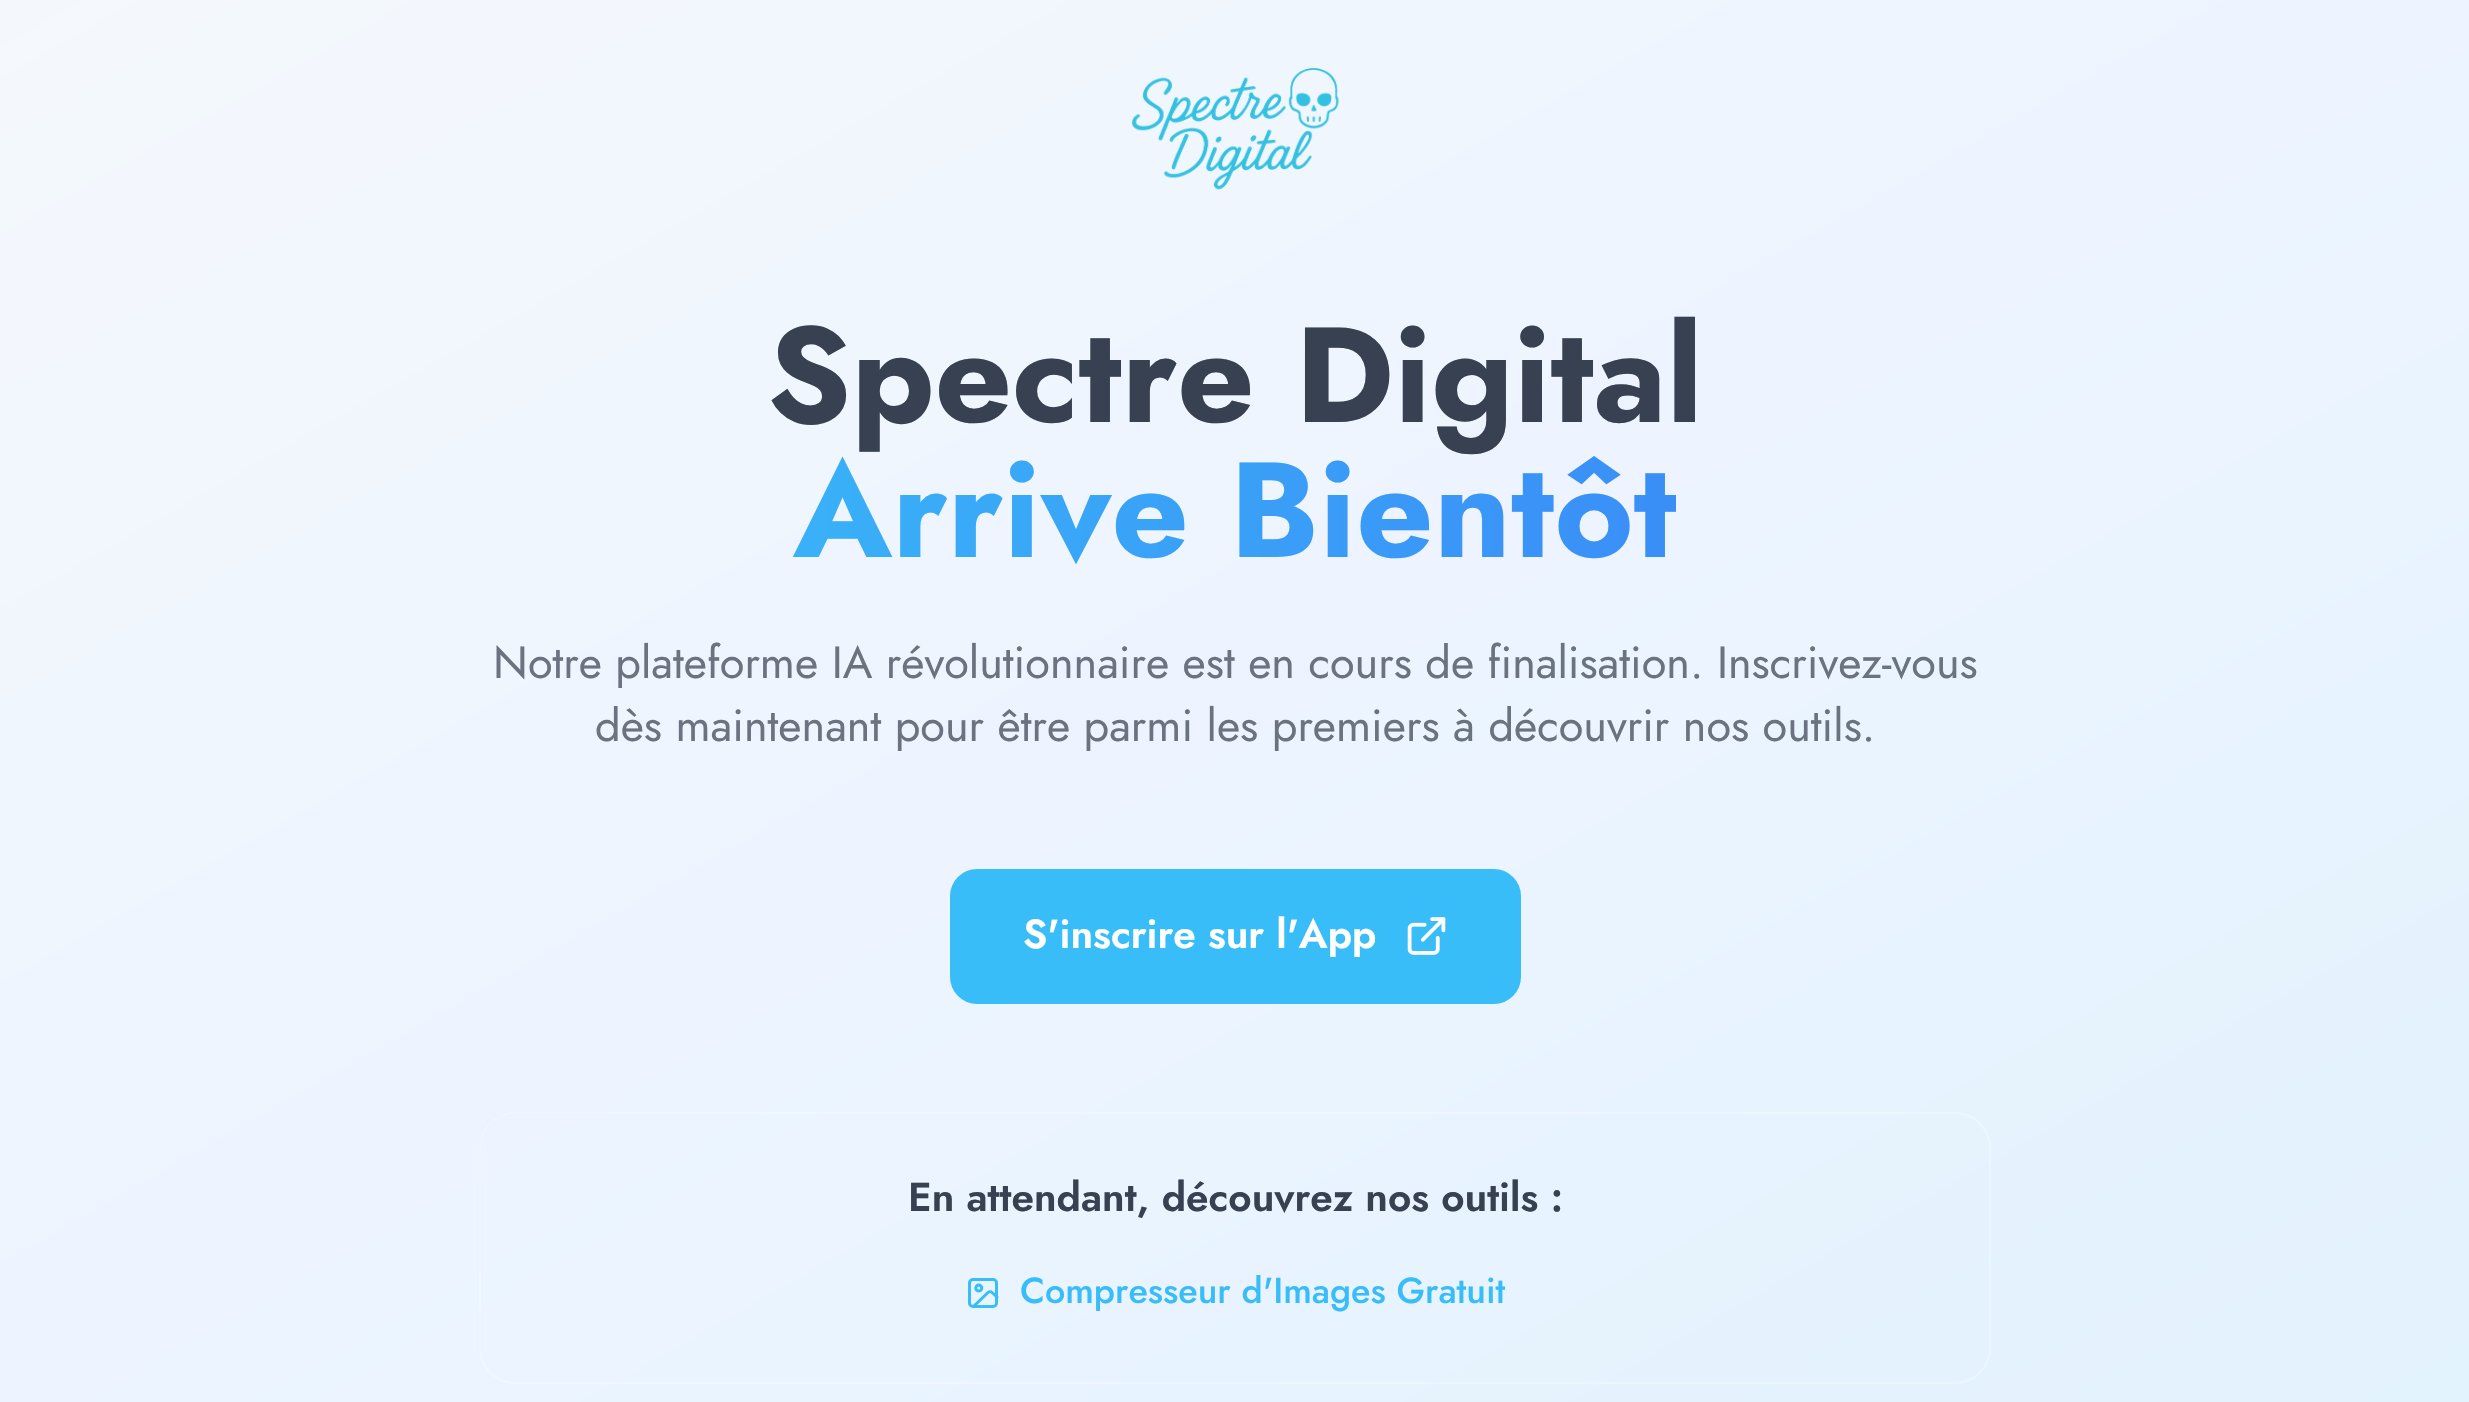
#include "include/core/SkBlurTypes.h"
#include "include/core/SkCanvas.h"
#include "include/core/SkData.h"
#include "include/core/SkFont.h"
#include "include/core/SkFontMgr.h"
#include "include/core/SkImage.h"
#include "include/core/SkMaskFilter.h"
#include "include/core/SkPaint.h"
#include "include/core/SkPathBuilder.h"
#include "include/core/SkTextBlob.h"
#include "include/effects/SkDashPathEffect.h"
#include "include/effects/SkGradientShader.h"
#include "include/utils/SkParsePath.h"

extern sk_sp<SkFontMgr> fontMgr;

void draw(SkCanvas* canvas) {
  SkPaint p;
  p.setAntiAlias(true);
  canvas->clear(SK_ColorWHITE);
  {
    const SkColor colors[] = {SkColorSetRGB(248, 250, 252), SkColorSetRGB(239, 246, 255), SkColorSetRGB(224, 242, 254)};
    const float stops[] = {0, 0.5f, 1};
    const SkPoint ends[] = {{632, -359}, {1838, 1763}};
    p.setShader(SkGradientShader::MakeLinear(ends, colors, stops, 3, SkTileMode::kClamp));
    p.setAlpha(255);
  }
  canvas->drawRect(SkRect::MakeLTRB(0, 0, 2469, 1402), p);
  {
    const SkColor colors[] = {SkColorSetARGB(38, 224, 242, 254), SkColorSetARGB(23, 219, 234, 254), SkColorSetARGB(38, 241, 245, 249)};
    const float stops[] = {0, 0.5f, 1};
    const SkPoint ends[] = {{632, -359}, {1838, 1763}};
    p.setShader(SkGradientShader::MakeLinear(ends, colors, stops, 3, SkTileMode::kClamp));
    p.setAlpha(255);
  }
  canvas->drawRect(SkRect::MakeLTRB(0, 0, 2469, 1402), p);
  canvas->drawImageRect(SkImages::DeferredFromEncodedData(SkData::MakeFromFileName("images/1.png")), SkRect::MakeLTRB(1131, 68, 1339, 190), SkSamplingOptions());
  p.setShader(nullptr);
  p.setColor(SkColorSetRGB(56, 189, 248));
  canvas->drawRoundRect(SkRect::MakeLTRB(950, 869, 1521, 1004), 27, 27, p);
  canvas->drawImageRect(SkImages::DeferredFromEncodedData(SkData::MakeFromFileName("images/2.png")), SkRect::MakeLTRB(1407, 917, 1446, 955), SkSamplingOptions());
  p.setStyle(SkPaint::kStroke_Style);
  p.setStrokeWidth(2);
  p.setColor(SkColorSetARGB(77, 255, 255, 255));
  canvas->drawRoundRect(SkRect::MakeLTRB(480, 1113, 1990, 1383), 35, 35, p);
  p.setStrokeWidth(3);
  p.setColor(SkColorSetRGB(56, 189, 248));
  canvas->drawRoundRect(SkRect::MakeLTRB(969.5f, 1279.5f, 996.5f, 1306.5f), 3.5f, 3.5f, p);
  canvas->drawCircle(978.8f, 1288.1f, 3, p);
  p.setStrokeCap(SkPaint::kRound_Cap);
  p.setStrokeJoin(SkPaint::kRound_Join);
  canvas->drawPath(SkPathBuilder().moveTo(997, 1297).lineTo(992, 1292.5f).cubicTo(991, 1291.5f, 989, 1291.5f, 988, 1292.5f).lineTo(974, 1306).detach(), p);
  SkFont font1(fontMgr->matchFamilyStyle("Jost", SkFontStyle::Bold()), 135);
  font1.setSubpixel(true);
  p.setStyle(SkPaint::kFill_Style);
  p.setColor(SkColorSetRGB(55, 65, 81));
  canvas->drawString("Spectre Digital", 767, 422, font1, p);
  {
    const SkColor colors[] = {SkColorSetRGB(56, 189, 248), SkColorSetRGB(59, 130, 246)};
    const float stops[] = {0, 1};
    const SkPoint ends[] = {{479, 512}, {1991, 512}};
    p.setShader(SkGradientShader::MakeLinear(ends, colors, stops, 2, SkTileMode::kClamp));
    p.setAlpha(255);
  }
  canvas->drawString("Arrive Bientôt", 793, 557, font1, p);
  SkFont font2(fontMgr->matchFamilyStyle("Jost", SkFontStyle::Normal()), 45);
  font2.setSubpixel(true);
  p.setShader(nullptr);
  p.setColor(SkColorSetRGB(107, 114, 128));
  canvas->drawString("Notre plateforme IA révolutionnaire est en cours de finalisation. Inscrivez-vous", 493, 678, font2, p);
  canvas->drawString("dès maintenant pour être parmi les premiers à découvrir nos outils.", 595, 741, font2, p);
  SkFont font3(fontMgr->matchFamilyStyle("Jost", SkFontStyle(600, SkFontStyle::kNormal_Width, SkFontStyle::kUpright_Slant)), 40.5f);
  font3.setSubpixel(true);
  p.setColor(SK_ColorWHITE);
  canvas->drawString("S'inscrire sur l'App", 1023, 948, font3, p);
  p.setColor(SkColorSetRGB(55, 65, 81));
  canvas->drawString("En attendant, découvrez nos outils :", 908, 1211, font3, p);
  SkFont font4(fontMgr->matchFamilyStyle("Jost", SkFontStyle(500, SkFontStyle::kNormal_Width, SkFontStyle::kUpright_Slant)), 36);
  font4.setSubpixel(true);
  p.setColor(SkColorSetRGB(56, 189, 248));
  canvas->drawString("Compresseur d'Images Gratuit", 1020, 1303, font4, p);
}
